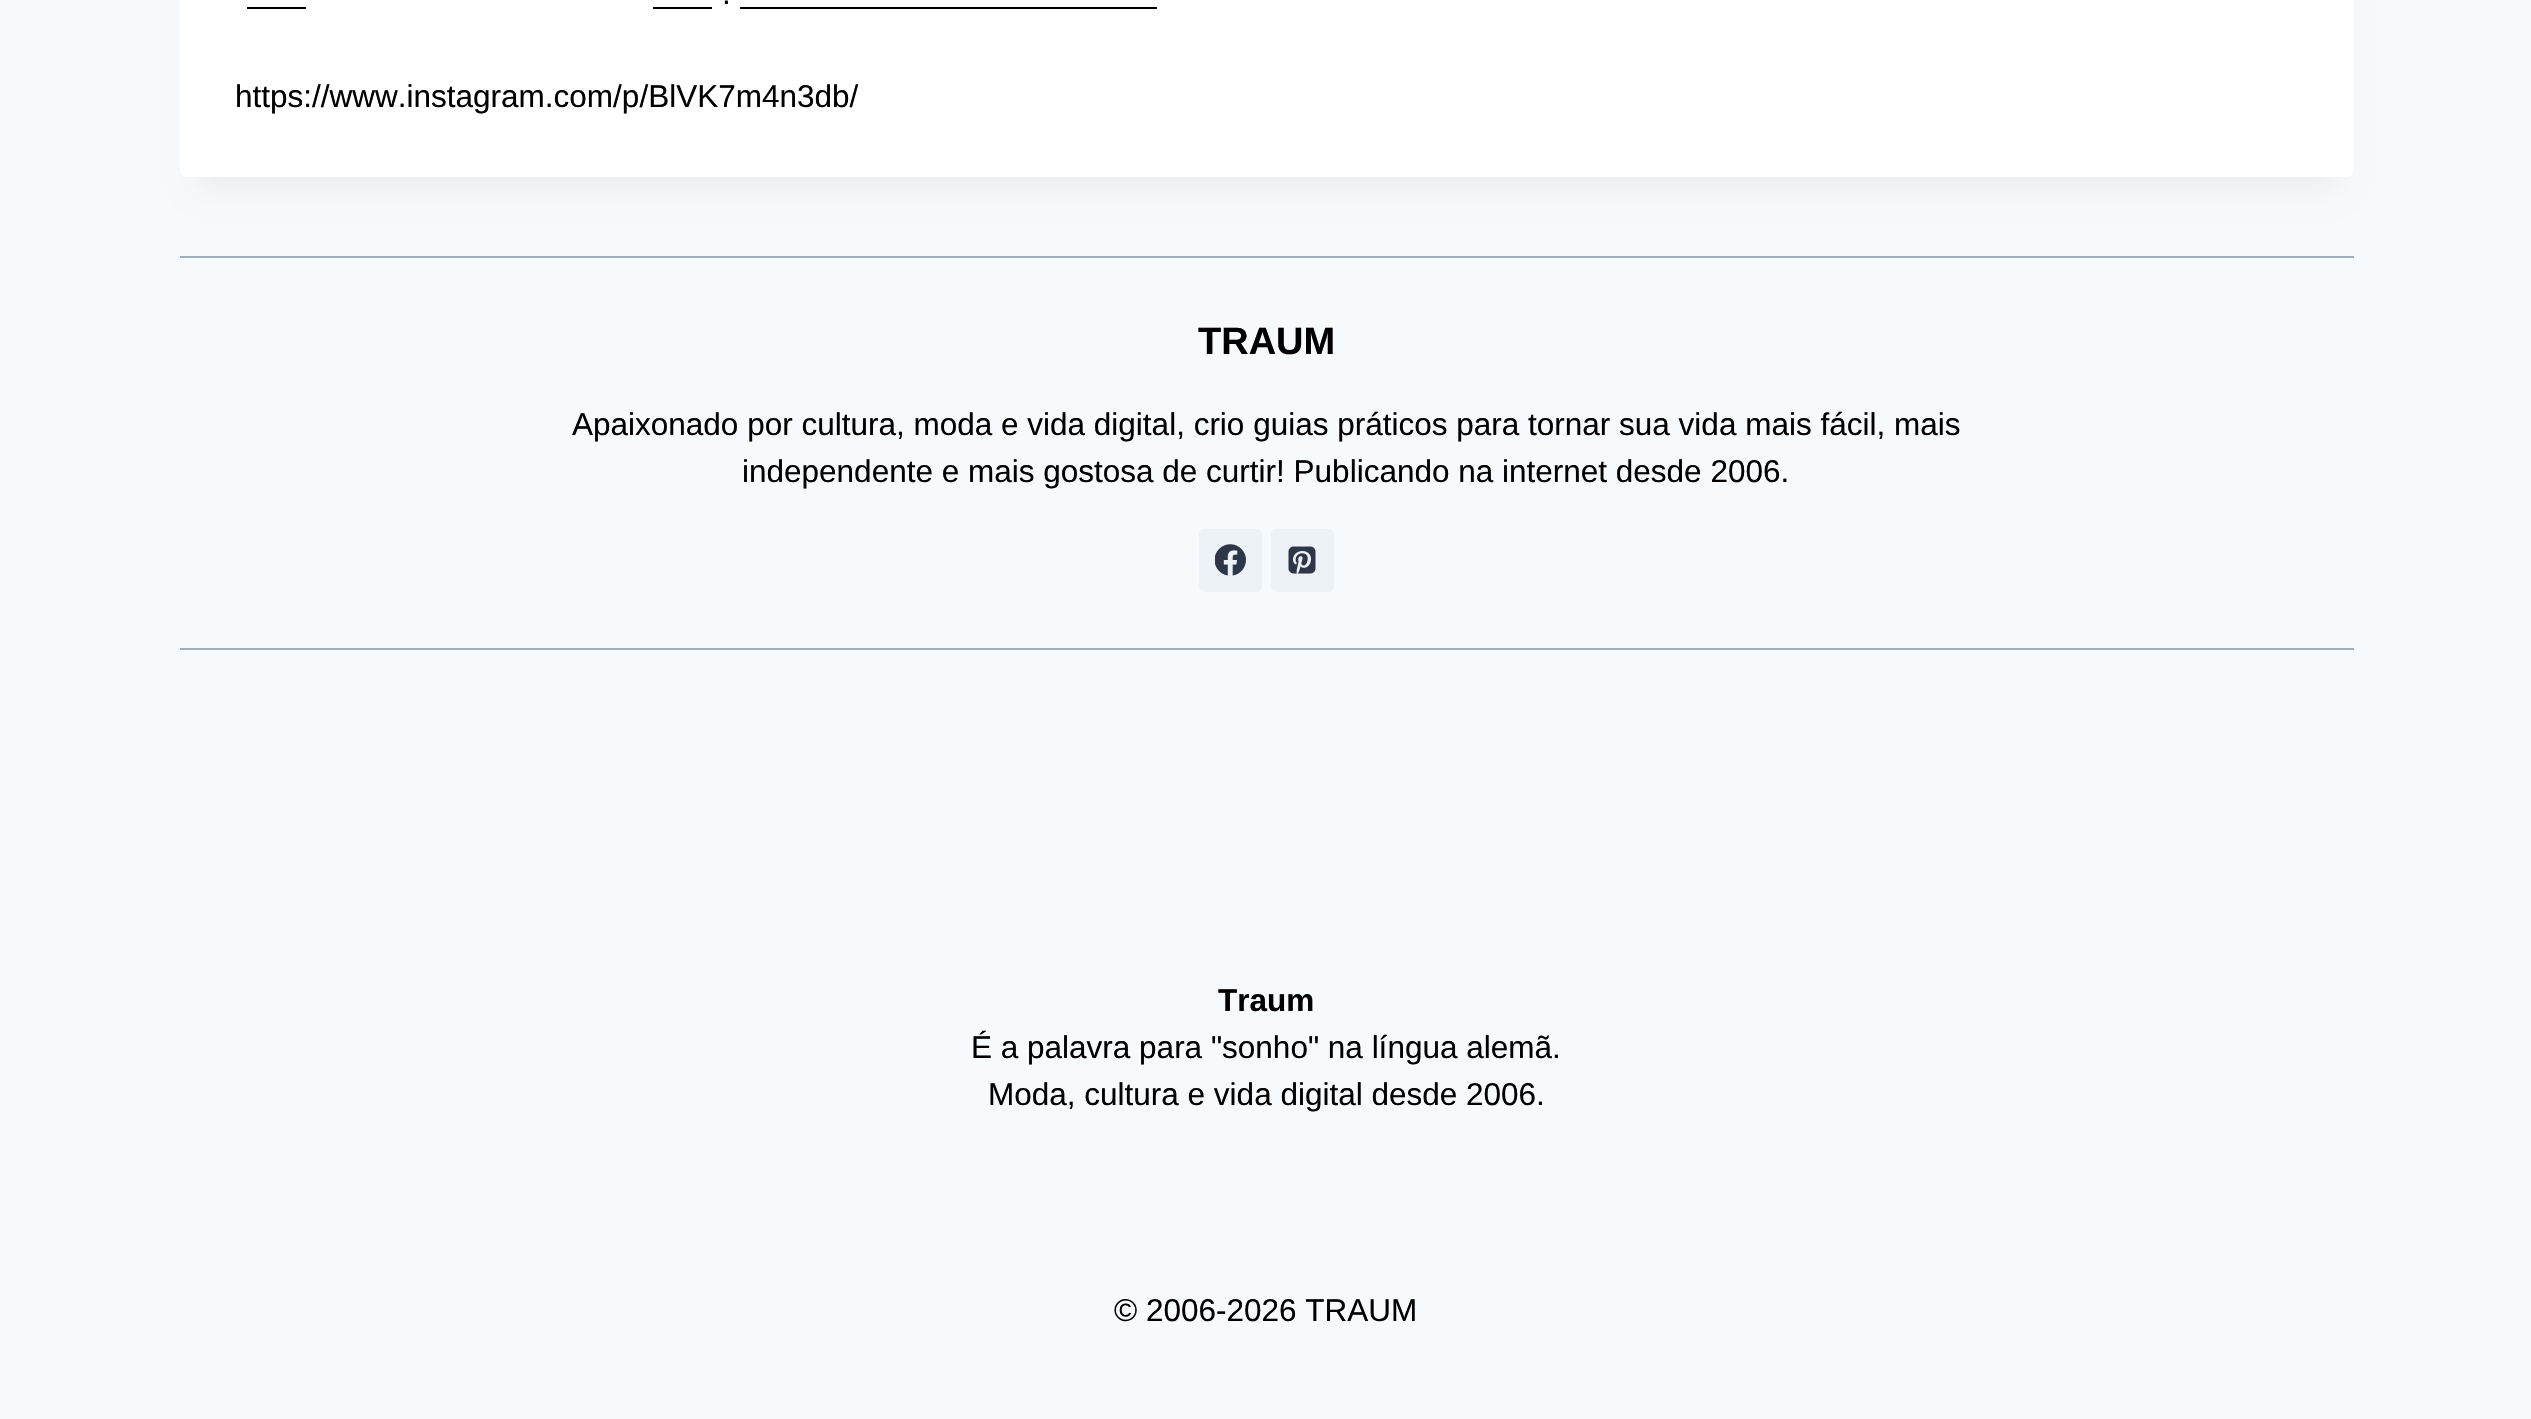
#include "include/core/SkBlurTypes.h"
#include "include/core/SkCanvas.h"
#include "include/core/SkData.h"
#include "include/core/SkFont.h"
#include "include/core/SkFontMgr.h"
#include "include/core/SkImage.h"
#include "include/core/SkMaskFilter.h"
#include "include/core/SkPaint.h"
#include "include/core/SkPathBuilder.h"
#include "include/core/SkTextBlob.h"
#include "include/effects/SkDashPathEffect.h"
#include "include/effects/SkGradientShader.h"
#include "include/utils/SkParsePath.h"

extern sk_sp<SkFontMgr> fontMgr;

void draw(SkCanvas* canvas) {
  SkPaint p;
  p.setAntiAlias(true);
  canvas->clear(SkColorSetRGB(247, 250, 252));
  p.setColor(SkColorSetARGB(13, 0, 0, 0));
  p.setMaskFilter(SkMaskFilter::MakeBlur(kNormal_SkBlurStyle, 13));
  canvas->drawRect(SkRect::MakeLTRB(198, -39, 2336, 186), p);
  p.setMaskFilter(nullptr);
  p.setColor(SK_ColorWHITE);
  canvas->drawRoundRect(SkRect::MakeLTRB(180, -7, 2354, 177), 7, 7, p);
  p.setColor(SK_ColorBLACK);
  canvas->drawRect(SkRect::MakeLTRB(247, 7, 306, 9), p);
  canvas->drawRect(SkRect::MakeLTRB(653, 7, 712, 9), p);
  canvas->drawRect(SkRect::MakeLTRB(740, 7, 1157, 9), p);
  p.setColor(SkColorSetRGB(160, 174, 192));
  canvas->drawRect(SkRect::MakeLTRB(180, 256, 2354, 258), p);
  canvas->drawRect(SkRect::MakeLTRB(180, 648, 2354, 650), p);
  p.setColor(SkColorSetRGB(237, 242, 247));
  canvas->drawRoundRect(SkRect::MakeLTRB(1199, 529, 1262, 592), 5, 5, p);
  canvas->drawImageRect(SkImages::DeferredFromEncodedData(SkData::MakeFromFileName("images/1.png")), SkRect::MakeLTRB(1215, 544, 1246, 576), SkSamplingOptions());
  canvas->drawRoundRect(SkRect::MakeLTRB(1271, 529, 1334, 592), 5, 5, p);
  canvas->drawImageRect(SkImages::DeferredFromEncodedData(SkData::MakeFromFileName("images/2.png")), SkRect::MakeLTRB(1288, 546, 1316, 574), SkSamplingOptions());
  SkFont font1(fontMgr->matchFamilyStyle("Liberation Sans", SkFontStyle::Normal()), 31.5f);
  font1.setSubpixel(true);
  p.setColor(SK_ColorBLACK);
  canvas->drawString(".", 722, 4, font1, p);
  canvas->drawString("https://www.instagram.com/p/BlVK7m4n3db/", 235, 107, font1, p);
  SkFont font2(fontMgr->matchFamilyStyle("Liberation Sans", SkFontStyle::Bold()), 38);
  font2.setSubpixel(true);
  canvas->drawString("TRAUM", 1198, 354, font2, p);
  canvas->drawString("Apaixonado por cultura, moda e vida digital, crio guias práticos para tornar sua vida mais fácil, mais", 572, 435, font1, p);
  canvas->drawString("independente e mais gostosa de curtir! Publicando na internet desde 2006.", 742, 482, font1, p);
  SkFont font3(fontMgr->matchFamilyStyle("Liberation Sans", SkFontStyle::Bold()), 31.5f);
  font3.setSubpixel(true);
  canvas->drawString("Traum", 1218, 1011, font3, p);
  canvas->drawString("É a palavra para \"sonho\" na língua alemã.", 971, 1058, font1, p);
  canvas->drawString("Moda, cultura e vida digital desde 2006.", 988, 1105, font1, p);
  canvas->drawString("© 2006-2026 TRAUM", 1114, 1321, font1, p);
}
